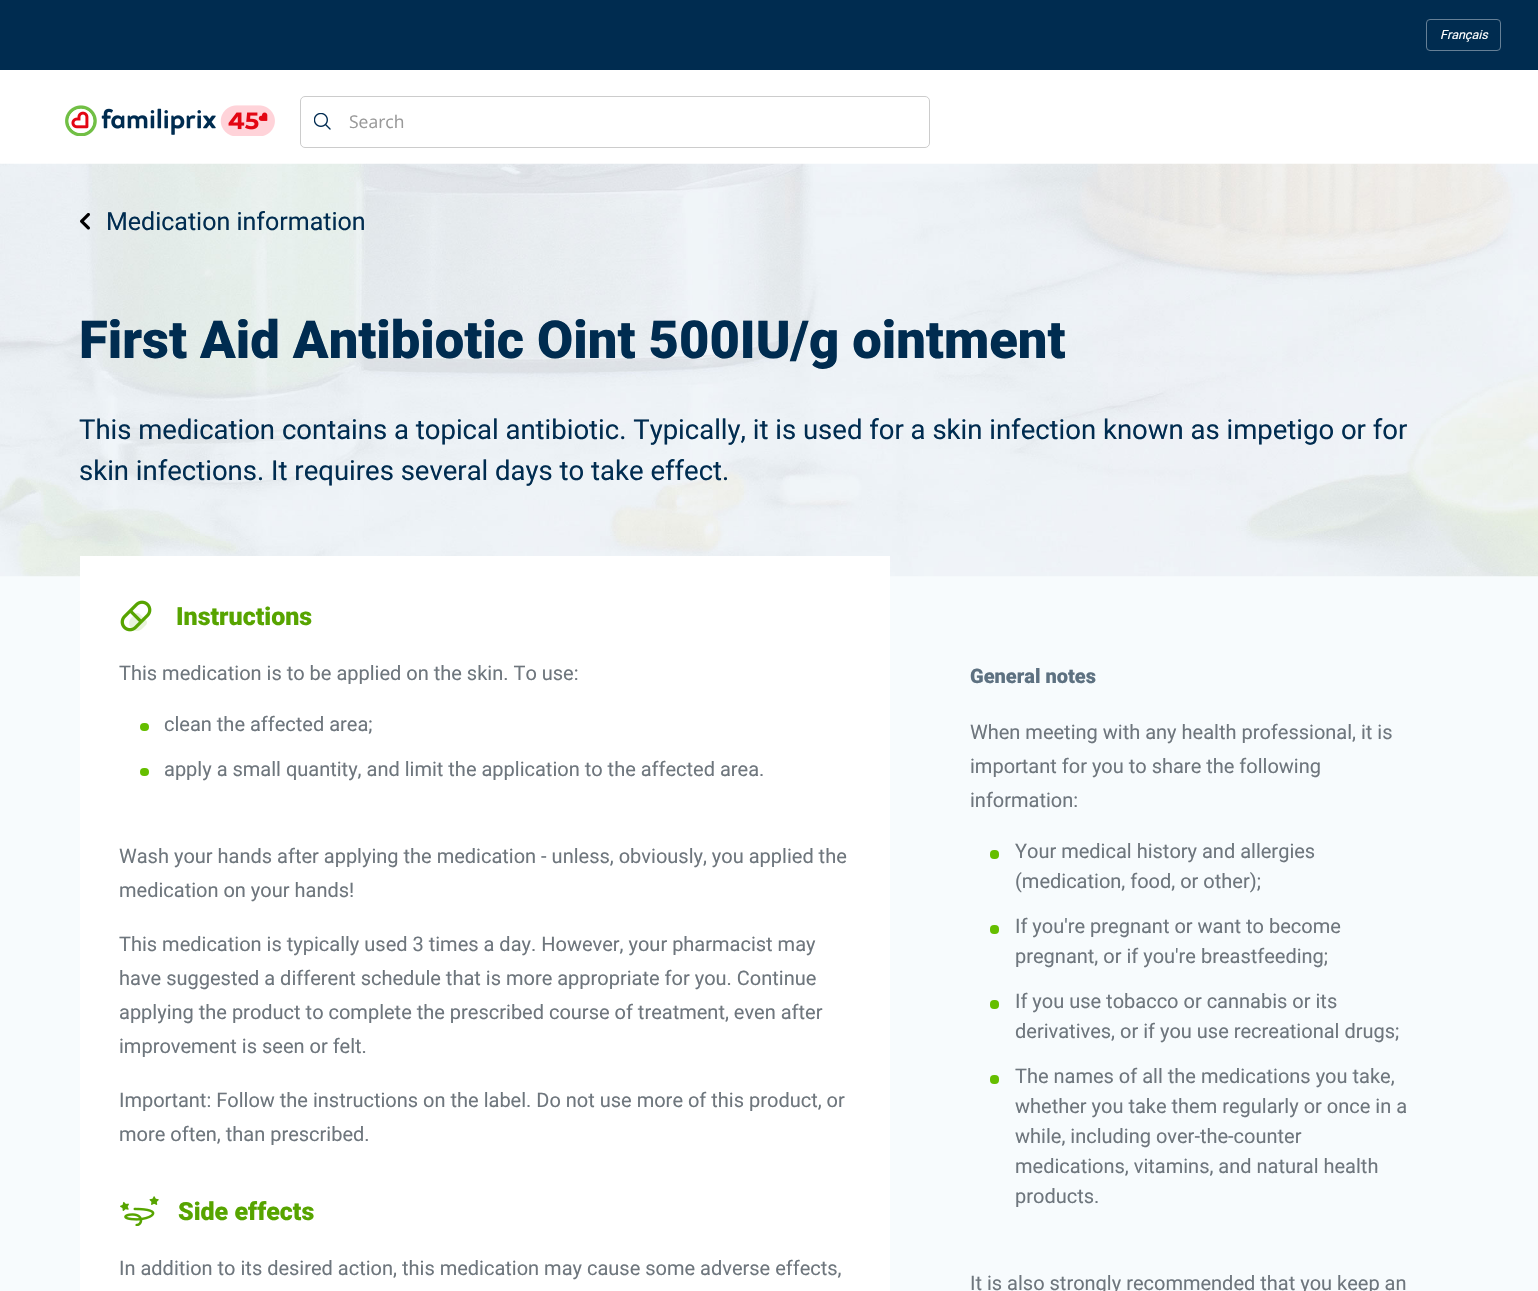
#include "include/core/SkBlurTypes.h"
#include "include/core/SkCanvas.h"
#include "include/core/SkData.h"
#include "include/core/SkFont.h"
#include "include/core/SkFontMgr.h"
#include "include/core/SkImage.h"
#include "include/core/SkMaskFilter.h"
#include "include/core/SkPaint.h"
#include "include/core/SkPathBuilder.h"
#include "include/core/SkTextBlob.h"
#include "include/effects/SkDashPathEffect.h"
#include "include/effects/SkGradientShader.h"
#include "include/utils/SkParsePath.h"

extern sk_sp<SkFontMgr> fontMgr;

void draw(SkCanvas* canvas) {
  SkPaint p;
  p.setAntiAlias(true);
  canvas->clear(SK_ColorWHITE);
  p.setColor(SkColorSetRGB(0, 44, 80));
  canvas->drawRect(SkRect::MakeLTRB(0, 0, 1538, 70), p);
  p.setStyle(SkPaint::kStroke_Style);
  p.setStrokeWidth(1);
  p.setColor(SkColorSetRGB(102, 128, 150));
  canvas->drawRoundRect(SkRect::MakeLTRB(1426.5f, 19.5f, 1500.5f, 50.5f), 3.5f, 3.5f, p);
  canvas->drawImageRect(SkImages::DeferredFromEncodedData(SkData::MakeFromFileName("images/1.png")), SkRect::MakeLTRB(65, 105, 275, 136), SkSamplingOptions());
  p.setColor(SkColorSetRGB(204, 204, 204));
  canvas->drawRoundRect(SkRect::MakeLTRB(300.5f, 96.5f, 929.5f, 147.5f), 4.5f, 4.5f, p);
  canvas->drawImageRect(SkImages::DeferredFromEncodedData(SkData::MakeFromFileName("images/2.png")), SkRect::MakeLTRB(314, 113, 331, 130), SkSamplingOptions());
  p.setStyle(SkPaint::kFill_Style);
  p.setColor(SkColorSetRGB(247, 251, 253));
  canvas->drawRect(SkRect::MakeLTRB(0, 576, 1538, 1291), p);
  canvas->drawImageRect(SkImages::DeferredFromEncodedData(SkData::MakeFromFileName("images/3.png")), SkRect::MakeLTRB(0, 163, 1538, 577), SkSamplingOptions());
  canvas->drawImageRect(SkImages::DeferredFromEncodedData(SkData::MakeFromFileName("images/4.png")), SkRect::MakeLTRB(80, 213, 90, 230), SkSamplingOptions());
  p.setColor(SK_ColorWHITE);
  canvas->drawRect(SkRect::MakeLTRB(80, 556, 890, 1291), p);
  canvas->drawImageRect(SkImages::DeferredFromEncodedData(SkData::MakeFromFileName("images/5.png")), SkRect::MakeLTRB(120, 600, 152, 632), SkSamplingOptions());
  p.setColor(SkColorSetRGB(101, 190, 0));
  canvas->drawRoundRect(SkRect::MakeLTRB(140, 723, 149, 731), 4, 4, p);
  canvas->drawRoundRect(SkRect::MakeLTRB(140, 768, 149, 776), 4, 4, p);
  canvas->drawImageRect(SkImages::DeferredFromEncodedData(SkData::MakeFromFileName("images/6.png")), SkRect::MakeLTRB(120, 1196, 159, 1226), SkSamplingOptions());
  canvas->drawRoundRect(SkRect::MakeLTRB(990, 850, 999, 859), 4, 4, p);
  canvas->drawRoundRect(SkRect::MakeLTRB(990, 925, 999, 934), 4, 4, p);
  canvas->drawRoundRect(SkRect::MakeLTRB(990, 1000, 999, 1009), 4, 4, p);
  canvas->drawRoundRect(SkRect::MakeLTRB(990, 1075, 999, 1084), 4, 4, p);
  SkFont font1(fontMgr->matchFamilyStyle("Roboto", SkFontStyle::Italic()), 12.5f);
  font1.setSubpixel(true);
  p.setColor(SK_ColorWHITE);
  canvas->drawString("Français", 1440, 39, font1, p);
  SkFont font2(fontMgr->matchFamilyStyle("Open Sans", SkFontStyle::Normal()), 17.5f);
  font2.setSubpixel(true);
  p.setColor(SkColorSetRGB(153, 153, 153));
  canvas->drawString("Search", 349, 128, font2, p);
  SkFont font3(fontMgr->matchFamilyStyle("Roboto", SkFontStyle::Normal()), 25);
  font3.setSubpixel(true);
  p.setColor(SkColorSetRGB(0, 44, 80));
  canvas->drawString("Medication information", 106, 230, font3, p);
  SkFont font4(fontMgr->matchFamilyStyle("Roboto", SkFontStyle(900, SkFontStyle::kNormal_Width, SkFontStyle::kUpright_Slant)), 52.5f);
  font4.setSubpixel(true);
  canvas->drawString("First Aid Antibiotic Oint 500IU/g ointment", 79, 358, font4, p);
  SkFont font5(fontMgr->matchFamilyStyle("Roboto", SkFontStyle::Normal()), 27.5f);
  font5.setSubpixel(true);
  canvas->drawString("This medication contains a topical antibiotic. Typically, it is used for a skin infection known as impetigo or for", 79, 439, font5, p);
  canvas->drawString("skin infections. It requires several days to take effect.", 79, 480, font5, p);
  SkFont font6(fontMgr->matchFamilyStyle("Roboto", SkFontStyle(900, SkFontStyle::kNormal_Width, SkFontStyle::kUpright_Slant)), 25);
  font6.setSubpixel(true);
  p.setColor(SkColorSetRGB(87, 164, 0));
  canvas->drawString("Instructions", 176, 625, font6, p);
  SkFont font7(fontMgr->matchFamilyStyle("Roboto", SkFontStyle::Normal()), 20);
  font7.setSubpixel(true);
  p.setColor(SkColorSetRGB(110, 118, 125));
  canvas->drawString("This medication is to be applied on the skin. To use:", 119, 680, font7, p);
  canvas->drawString("clean the affected area;", 164, 731, font7, p);
  canvas->drawString("apply a small quantity, and limit the application to the affected area.", 164, 776, font7, p);
  canvas->drawString("Wash your hands after applying the medication - unless, obviously, you applied the", 119, 863, font7, p);
  canvas->drawString("medication on your hands!", 119, 897, font7, p);
  canvas->drawString("This medication is typically used 3 times a day. However, your pharmacist may", 119, 951, font7, p);
  canvas->drawString("have suggested a different schedule that is more appropriate for you. Continue", 119, 985, font7, p);
  canvas->drawString("applying the product to complete the prescribed course of treatment, even after", 119, 1019, font7, p);
  canvas->drawString("improvement is seen or felt.", 119, 1053, font7, p);
  canvas->drawString("Important: Follow the instructions on the label. Do not use more of this product, or", 119, 1107, font7, p);
  canvas->drawString("more often, than prescribed.", 119, 1141, font7, p);
  p.setColor(SkColorSetRGB(87, 164, 0));
  canvas->drawString("Side effects", 178, 1220, font6, p);
  p.setColor(SkColorSetRGB(110, 118, 125));
  canvas->drawString("In addition to its desired action, this medication may cause some adverse effects,", 119, 1275, font7, p);
  SkFont font8(fontMgr->matchFamilyStyle("Roboto", SkFontStyle(900, SkFontStyle::kNormal_Width, SkFontStyle::kUpright_Slant)), 20);
  font8.setSubpixel(true);
  p.setColor(SkColorSetRGB(93, 113, 129));
  canvas->drawString("General notes", 970, 683, font8, p);
  p.setColor(SkColorSetRGB(110, 118, 125));
  canvas->drawString("When meeting with any health professional, it is", 970, 739, font7, p);
  canvas->drawString("important for you to share the following", 970, 773, font7, p);
  canvas->drawString("information:", 970, 807, font7, p);
  canvas->drawString("Your medical history and allergies", 1015, 858, font7, p);
  canvas->drawString("(medication, food, or other);", 1015, 888, font7, p);
  canvas->drawString("If you're pregnant or want to become", 1015, 933, font7, p);
  canvas->drawString("pregnant, or if you're breastfeeding;", 1015, 963, font7, p);
  canvas->drawString("If you use tobacco or cannabis or its", 1015, 1008, font7, p);
  canvas->drawString("derivatives, or if you use recreational drugs;", 1015, 1038, font7, p);
  canvas->drawString("The names of all the medications you take,", 1015, 1083, font7, p);
  canvas->drawString("whether you take them regularly or once in a", 1015, 1113, font7, p);
  canvas->drawString("while, including over-the-counter", 1015, 1143, font7, p);
  canvas->drawString("medications, vitamins, and natural health", 1015, 1173, font7, p);
  canvas->drawString("products.", 1015, 1203, font7, p);
  canvas->drawString("It is also strongly recommended that you keep an", 970, 1290, font7, p);
}
